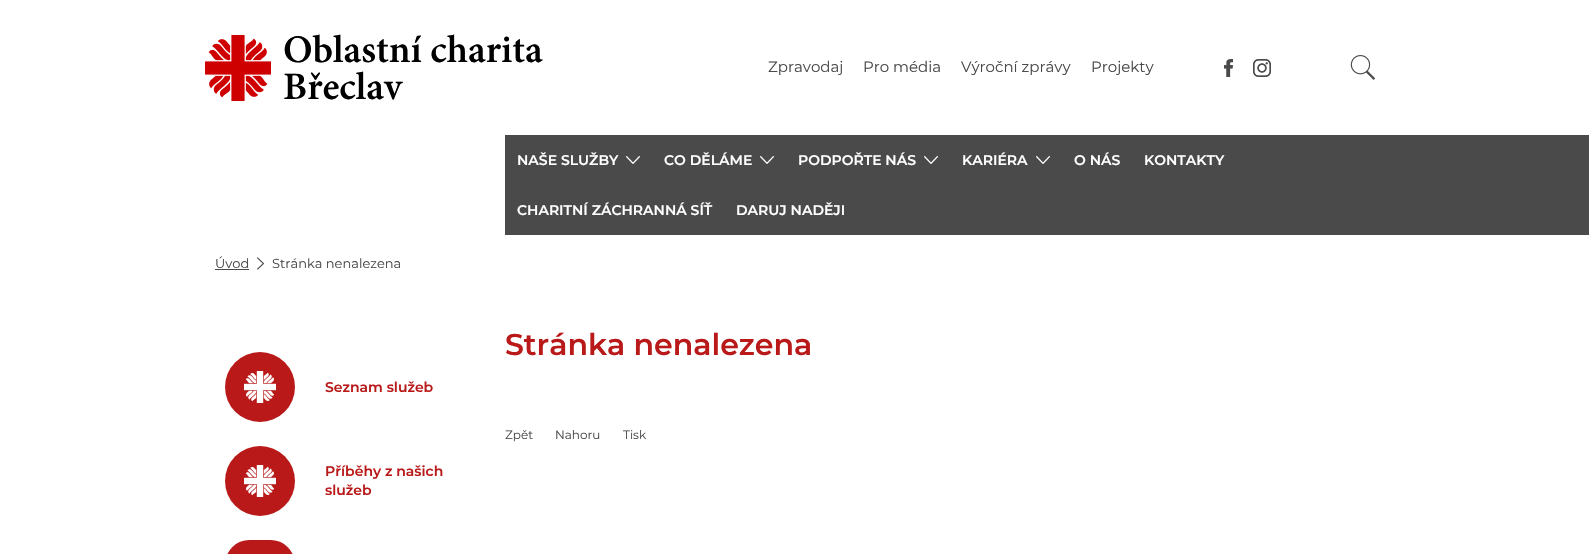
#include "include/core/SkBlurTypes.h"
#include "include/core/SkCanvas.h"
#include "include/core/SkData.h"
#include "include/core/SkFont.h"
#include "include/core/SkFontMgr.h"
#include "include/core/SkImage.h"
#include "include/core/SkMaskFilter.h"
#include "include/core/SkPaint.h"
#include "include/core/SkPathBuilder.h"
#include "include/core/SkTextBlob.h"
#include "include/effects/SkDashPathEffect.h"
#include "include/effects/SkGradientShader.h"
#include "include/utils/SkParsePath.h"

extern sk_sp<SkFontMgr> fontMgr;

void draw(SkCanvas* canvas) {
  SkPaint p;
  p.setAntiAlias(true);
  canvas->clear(SK_ColorWHITE);
  canvas->drawImageRect(SkImages::DeferredFromEncodedData(SkData::MakeFromFileName("images/1.png")), SkRect::MakeLTRB(205, 35, 271, 101), SkSamplingOptions());
  canvas->drawImageRect(SkImages::DeferredFromEncodedData(SkData::MakeFromFileName("images/2.png")), SkRect::MakeLTRB(1224, 59, 1233, 77), SkSamplingOptions());
  canvas->drawImageRect(SkImages::DeferredFromEncodedData(SkData::MakeFromFileName("images/3.png")), SkRect::MakeLTRB(1253, 59, 1271, 77), SkSamplingOptions());
  canvas->drawImageRect(SkImages::DeferredFromEncodedData(SkData::MakeFromFileName("images/4.png")), SkRect::MakeLTRB(1350, 55, 1376, 80), SkSamplingOptions());
  p.setColor(SkColorSetRGB(74, 74, 74));
  canvas->drawRect(SkRect::MakeLTRB(505, 135, 1589, 235), p);
  canvas->drawImageRect(SkImages::DeferredFromEncodedData(SkData::MakeFromFileName("images/5.png")), SkRect::MakeLTRB(626, 156, 640, 164), SkSamplingOptions());
  canvas->drawImageRect(SkImages::DeferredFromEncodedData(SkData::MakeFromFileName("images/5.png")), SkRect::MakeLTRB(760, 156, 774, 164), SkSamplingOptions());
  canvas->drawImageRect(SkImages::DeferredFromEncodedData(SkData::MakeFromFileName("images/5.png")), SkRect::MakeLTRB(924, 156, 938, 164), SkSamplingOptions());
  canvas->drawImageRect(SkImages::DeferredFromEncodedData(SkData::MakeFromFileName("images/5.png")), SkRect::MakeLTRB(1036, 156, 1050, 164), SkSamplingOptions());
  canvas->drawRect(SkRect::MakeLTRB(215, 269, 249, 270), p);
  canvas->drawImageRect(SkImages::DeferredFromEncodedData(SkData::MakeFromFileName("images/6.png")), SkRect::MakeLTRB(257, 257, 264, 270), SkSamplingOptions());
  p.setColor(SkColorSetRGB(185, 25, 25));
  canvas->drawCircle(260, 387, 35, p);
  canvas->drawImageRect(SkImages::DeferredFromEncodedData(SkData::MakeFromFileName("images/7.png")), SkRect::MakeLTRB(244, 371, 276, 403), SkSamplingOptions());
  canvas->drawCircle(260, 481, 35, p);
  canvas->drawImageRect(SkImages::DeferredFromEncodedData(SkData::MakeFromFileName("images/7.png")), SkRect::MakeLTRB(244, 465, 276, 497), SkSamplingOptions());
  canvas->drawRoundRect(SkRect::MakeLTRB(225, 540, 295, 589), 35, 35, p);
  SkFont font1(fontMgr->matchFamilyStyle("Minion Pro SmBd", SkFontStyle(600, SkFontStyle::kNormal_Width, SkFontStyle::kUpright_Slant)), 39);
  font1.setSubpixel(true);
  p.setColor(SK_ColorBLACK);
  canvas->drawString("Oblastní charita", 283, 62, font1, p);
  canvas->drawString("Břeclav", 283, 99, font1, p);
  SkFont font2(fontMgr->matchFamilyStyle("Montserrat", SkFontStyle::Normal()), 15);
  font2.setSubpixel(true);
  p.setColor(SkColorSetRGB(74, 74, 74));
  canvas->drawString("Zpravodaj", 768, 72, font2, p);
  canvas->drawString("Pro média", 863, 72, font2, p);
  canvas->drawString("Výroční zprávy", 961, 72, font2, p);
  canvas->drawString("Projekty", 1091, 72, font2, p);
  SkFont font3(fontMgr->matchFamilyStyle("Montserrat", SkFontStyle(600, SkFontStyle::kNormal_Width, SkFontStyle::kUpright_Slant)), 14);
  font3.setSubpixel(true);
  p.setColor(SK_ColorWHITE);
  canvas->drawString("NAŠE SLUŽBY", 517, 165, font3, p);
  canvas->drawString("CO DĚLÁME", 664, 165, font3, p);
  canvas->drawString("PODPOŘTE NÁS", 798, 165, font3, p);
  canvas->drawString("KARIÉRA", 962, 165, font3, p);
  canvas->drawString("O NÁS", 1074, 165, font3, p);
  canvas->drawString("KONTAKTY", 1144, 165, font3, p);
  canvas->drawString("CHARITNÍ ZÁCHRANNÁ SÍŤ", 517, 215, font3, p);
  canvas->drawString("DARUJ NADĚJI", 736, 215, font3, p);
  SkFont font4(fontMgr->matchFamilyStyle("Montserrat", SkFontStyle::Normal()), 13);
  font4.setSubpixel(true);
  p.setColor(SkColorSetRGB(74, 74, 74));
  canvas->drawString("Úvod", 215, 268, font4, p);
  canvas->drawString("Stránka nenalezena", 272, 268, font4, p);
  p.setColor(SkColorSetRGB(185, 25, 25));
  canvas->drawString("Seznam služeb", 325, 392, font3, p);
  canvas->drawString("Příběhy z našich", 325, 476, font3, p);
  canvas->drawString("služeb", 325, 495, font3, p);
  SkFont font5(fontMgr->matchFamilyStyle("Montserrat", SkFontStyle(600, SkFontStyle::kNormal_Width, SkFontStyle::kUpright_Slant)), 30);
  font5.setSubpixel(true);
  canvas->drawString("Stránka nenalezena", 505, 355, font5, p);
  SkFont font6(fontMgr->matchFamilyStyle("Montserrat", SkFontStyle::Normal()), 12);
  font6.setSubpixel(true);
  p.setColor(SkColorSetRGB(74, 74, 74));
  canvas->drawString("Zpět", 505, 439, font6, p);
  canvas->drawString("Nahoru", 555, 439, font6, p);
  canvas->drawString("Tisk", 623, 439, font6, p);
}
